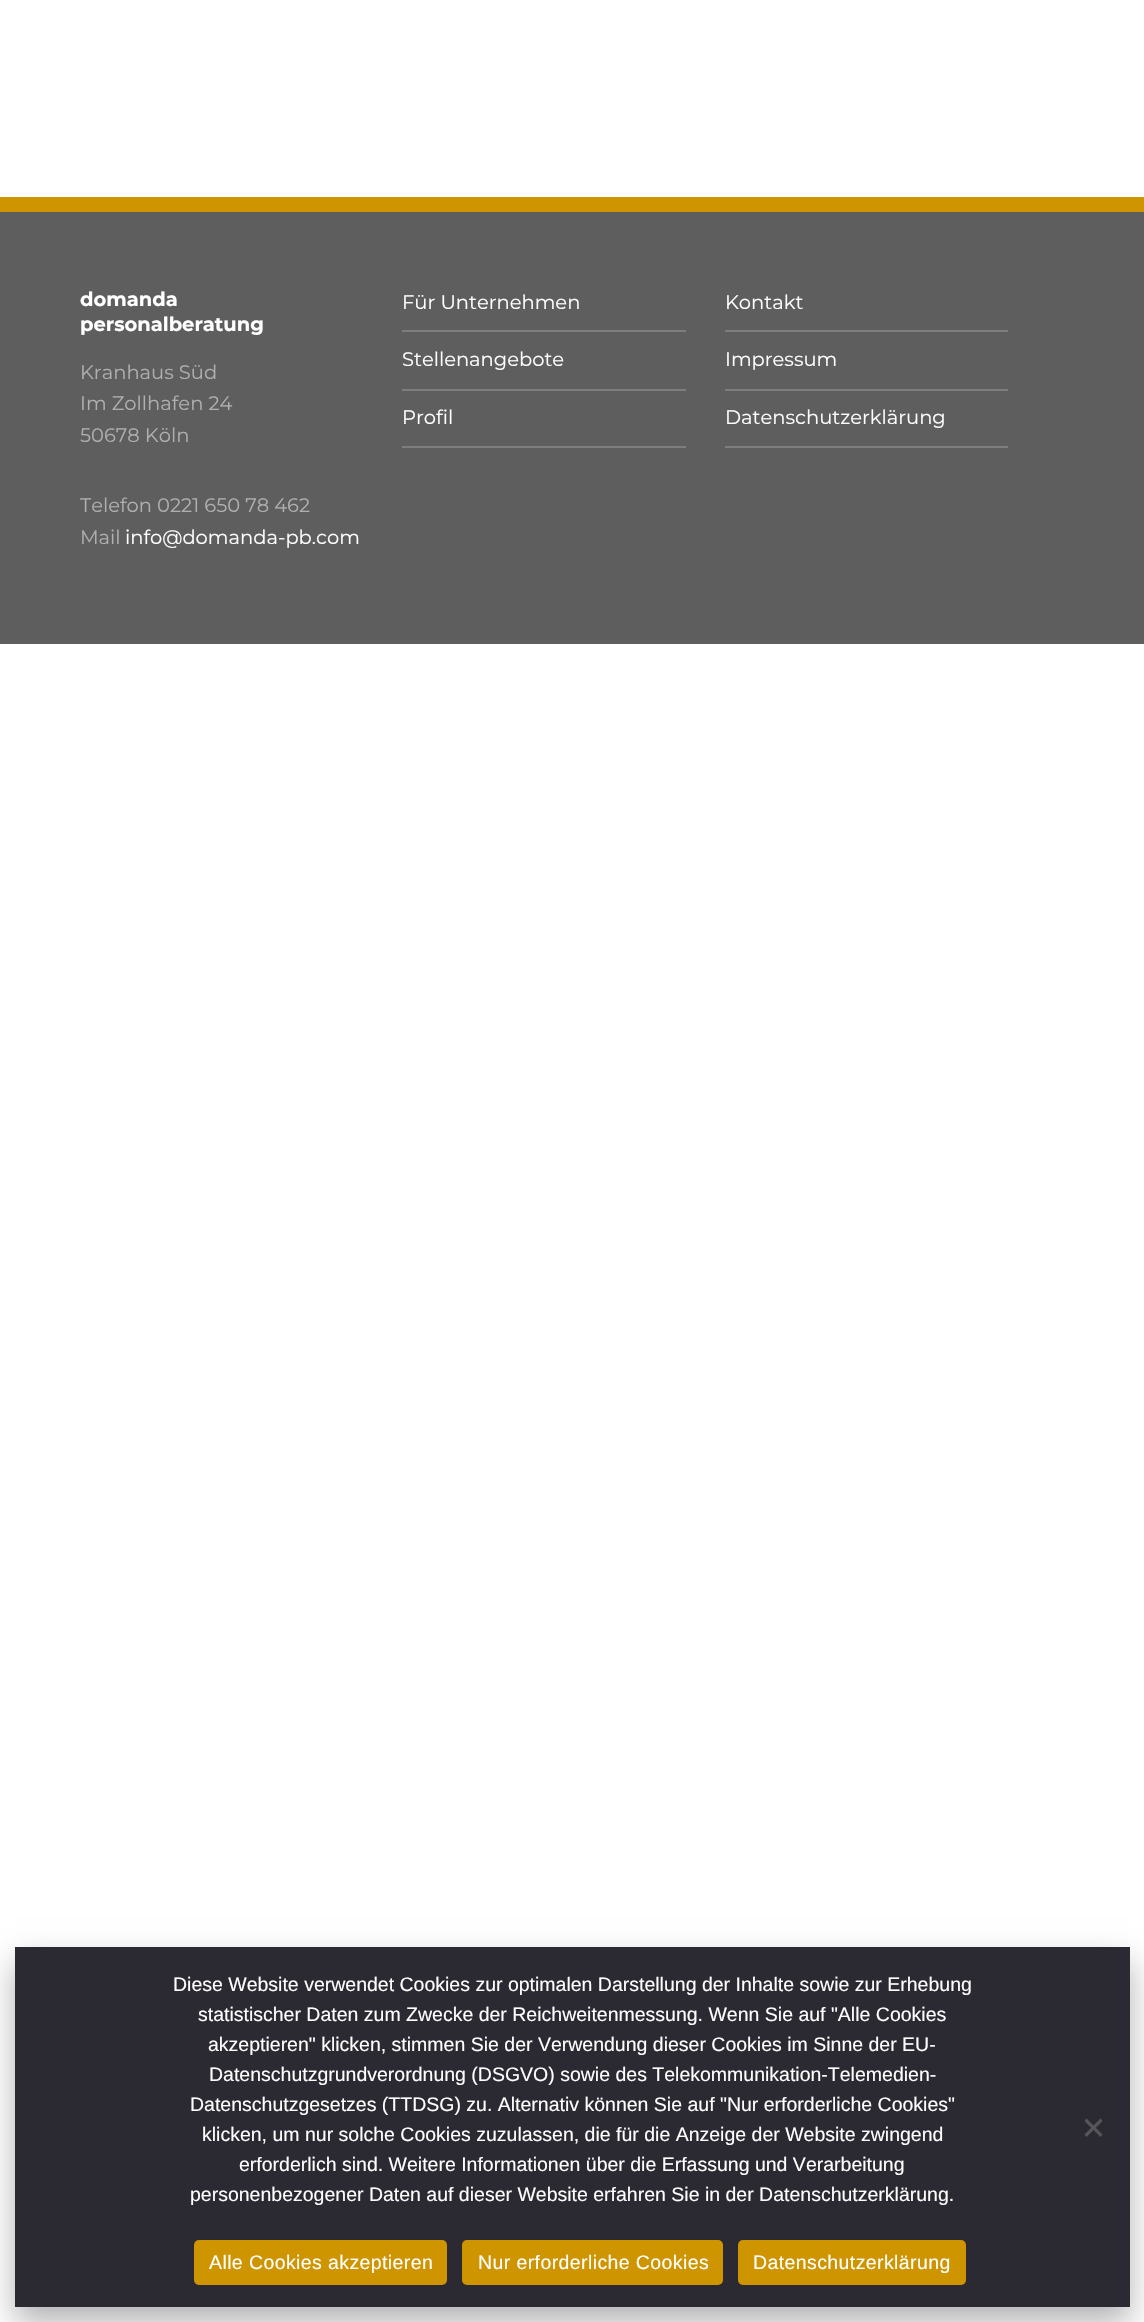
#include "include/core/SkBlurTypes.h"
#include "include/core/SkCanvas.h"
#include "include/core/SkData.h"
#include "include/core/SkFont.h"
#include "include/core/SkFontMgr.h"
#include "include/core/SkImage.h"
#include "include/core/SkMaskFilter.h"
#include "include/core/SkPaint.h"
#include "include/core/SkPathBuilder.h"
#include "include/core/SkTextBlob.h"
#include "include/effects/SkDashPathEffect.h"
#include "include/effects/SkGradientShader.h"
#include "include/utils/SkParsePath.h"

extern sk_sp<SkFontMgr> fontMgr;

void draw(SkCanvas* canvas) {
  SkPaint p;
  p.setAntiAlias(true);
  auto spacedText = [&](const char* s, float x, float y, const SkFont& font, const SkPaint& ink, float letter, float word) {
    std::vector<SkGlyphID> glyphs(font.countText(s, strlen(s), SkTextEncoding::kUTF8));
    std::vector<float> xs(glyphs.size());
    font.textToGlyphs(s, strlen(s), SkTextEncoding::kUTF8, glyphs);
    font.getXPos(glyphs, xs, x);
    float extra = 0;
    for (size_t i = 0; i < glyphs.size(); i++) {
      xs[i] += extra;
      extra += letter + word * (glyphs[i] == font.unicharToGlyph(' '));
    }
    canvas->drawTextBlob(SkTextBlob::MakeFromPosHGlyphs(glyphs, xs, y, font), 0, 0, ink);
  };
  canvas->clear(SK_ColorWHITE);
  p.setColor(SkColorSetRGB(94, 94, 94));
  canvas->drawRect(SkRect::MakeLTRB(0, 212, 1144, 644), p);
  p.setColor(SkColorSetRGB(206, 149, 0));
  canvas->drawRect(SkRect::MakeLTRB(0, 197, 1144, 212), p);
  p.setColor(SkColorSetRGB(126, 126, 126));
  canvas->drawRect(SkRect::MakeLTRB(402, 330, 686, 332), p);
  canvas->drawRect(SkRect::MakeLTRB(402, 389, 686, 391), p);
  canvas->drawRect(SkRect::MakeLTRB(402, 446, 686, 448), p);
  canvas->drawRect(SkRect::MakeLTRB(725, 330, 1008, 332), p);
  canvas->drawRect(SkRect::MakeLTRB(725, 389, 1008, 391), p);
  canvas->drawRect(SkRect::MakeLTRB(725, 446, 1008, 448), p);
  p.setColor(SkColorSetARGB(77, 0, 0, 0));
  p.setMaskFilter(SkMaskFilter::MakeBlur(kNormal_SkBlurStyle, 15));
  canvas->drawRect(SkRect::MakeLTRB(15, 1962, 1130, 2322), p);
  p.setMaskFilter(nullptr);
  p.setColor(SkColorSetRGB(43, 42, 51));
  canvas->drawRect(SkRect::MakeLTRB(15, 1947, 1130, 2307), p);
  p.setColor(SkColorSetRGB(86, 85, 90));
  canvas->drawPath(SkPathBuilder().moveTo(1100.5f, 2118.5f).lineTo(1102.5f, 2121).lineTo(1086.5f, 2137).lineTo(1084.5f, 2134.5f).close().detach(), p);
  canvas->drawPath(SkPathBuilder().moveTo(1084.5f, 2121).lineTo(1086.5f, 2118.5f).lineTo(1102.5f, 2134.5f).lineTo(1100.5f, 2137).close().detach(), p);
  p.setColor(SkColorSetRGB(206, 149, 0));
  canvas->drawRoundRect(SkRect::MakeLTRB(194, 2240, 447, 2285), 5, 5, p);
  canvas->drawRoundRect(SkRect::MakeLTRB(462, 2240, 723, 2285), 5, 5, p);
  canvas->drawRoundRect(SkRect::MakeLTRB(738, 2240, 966, 2285), 5, 5, p);
  SkFont font1(fontMgr->matchFamilyStyle("Montserrat", SkFontStyle::Bold()), 19.5f);
  font1.setSubpixel(true);
  p.setColor(SK_ColorWHITE);
  canvas->drawString("domanda", 80, 306, font1, p);
  canvas->drawString("personalberatung", 80, 331, font1, p);
  SkFont font2(fontMgr->matchFamilyStyle("Montserrat", SkFontStyle::Normal()), 19.5f);
  font2.setSubpixel(true);
  p.setColor(SkColorSetRGB(175, 175, 175));
  canvas->drawString("Kranhaus Süd", 80, 379, font2, p);
  canvas->drawString("Im Zollhafen 24", 80, 410, font2, p);
  canvas->drawString("50678 Köln", 80, 442, font2, p);
  canvas->drawString("Telefon 0221 650 78 462", 80, 512, font2, p);
  canvas->drawString("Mail", 80, 544, font2, p);
  p.setColor(SK_ColorWHITE);
  canvas->drawString("info@domanda-pb.com", 125, 544, font2, p);
  canvas->drawString("Für Unternehmen", 402, 309, font2, p);
  canvas->drawString("Stellenangebote", 402, 366, font2, p);
  canvas->drawString("Profil", 402, 424, font2, p);
  canvas->drawString("Kontakt", 725, 309, font2, p);
  canvas->drawString("Impressum", 725, 366, font2, p);
  canvas->drawString("Datenschutzerklärung", 725, 424, font2, p);
  SkFont font3(fontMgr->matchFamilyStyle("Liberation Sans", SkFontStyle::Normal()), 19.5f);
  font3.setSubpixel(true);
  canvas->drawString("Diese Website verwendet Cookies zur optimalen Darstellung der Inhalte sowie zur Erhebung", 173, 1991, font3, p);
  canvas->drawString("statistischer Daten zum Zwecke der Reichweitenmessung. Wenn Sie auf \"Alle Cookies", 198, 2021, font3, p);
  canvas->drawString("akzeptieren\" klicken, stimmen Sie der Verwendung dieser Cookies im Sinne der EU-", 208, 2051, font3, p);
  canvas->drawString("Datenschutzgrundverordnung (DSGVO) sowie des Telekommunikation-Telemedien-", 209, 2081, font3, p);
  canvas->drawString("Datenschutzgesetzes (TTDSG) zu. Alternativ können Sie auf \"Nur erforderliche Cookies\"", 190, 2111, font3, p);
  canvas->drawString("klicken, um nur solche Cookies zuzulassen, die für die Anzeige der Website zwingend", 202, 2141, font3, p);
  canvas->drawString("erforderlich sind. Weitere Informationen über die Erfassung und Verarbeitung", 239, 2171, font3, p);
  canvas->drawString("personenbezogener Daten auf dieser Website erfahren Sie in der Datenschutzerklärung.", 190, 2201, font3, p);
  spacedText("Alle Cookies akzeptieren", 209, 2269, font3, p, 0.4f, 0);
  spacedText("Nur erforderliche Cookies", 478, 2269, font3, p, 0.4f, 0);
  spacedText("Datenschutzerklärung", 753, 2269, font3, p, 0.4f, 0);
}
